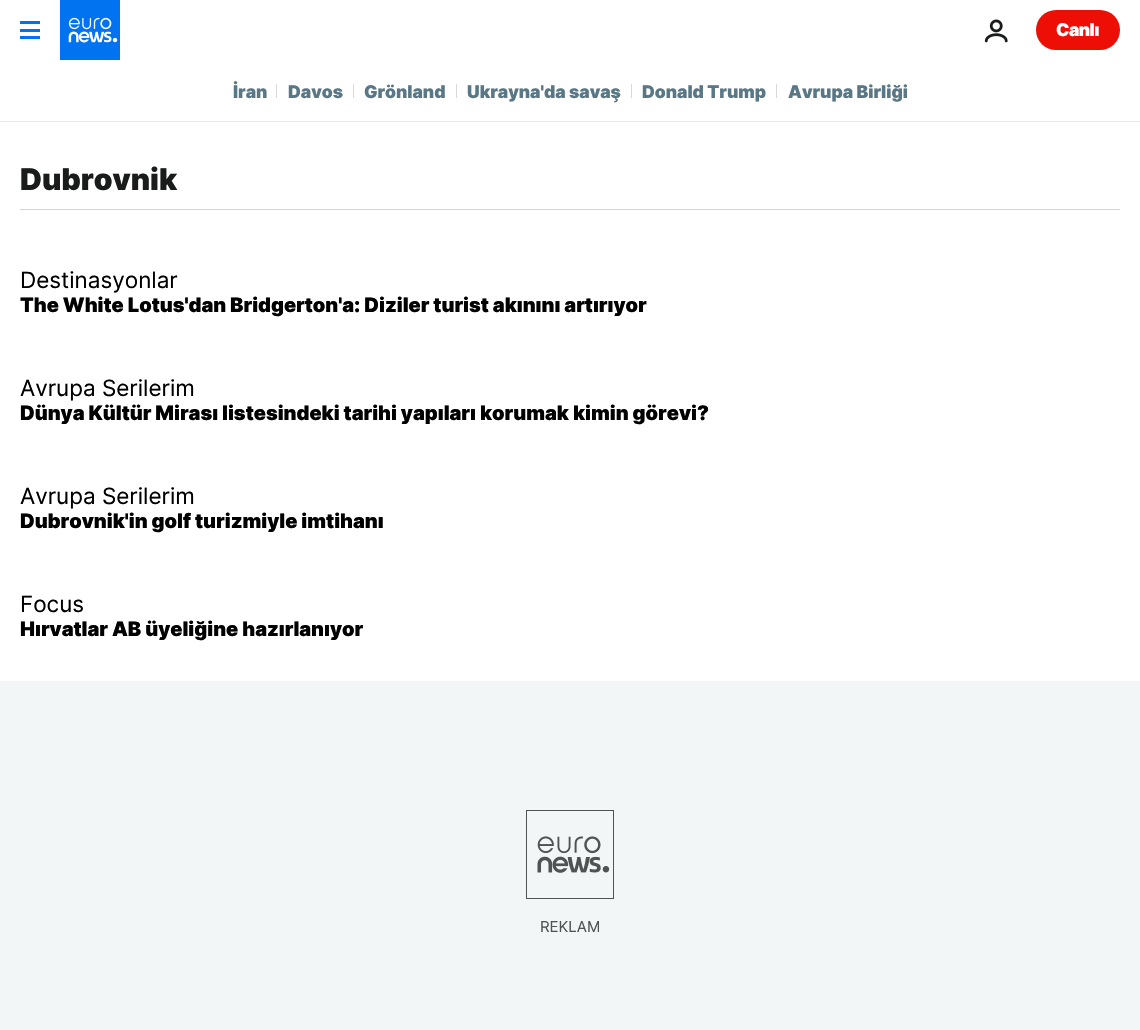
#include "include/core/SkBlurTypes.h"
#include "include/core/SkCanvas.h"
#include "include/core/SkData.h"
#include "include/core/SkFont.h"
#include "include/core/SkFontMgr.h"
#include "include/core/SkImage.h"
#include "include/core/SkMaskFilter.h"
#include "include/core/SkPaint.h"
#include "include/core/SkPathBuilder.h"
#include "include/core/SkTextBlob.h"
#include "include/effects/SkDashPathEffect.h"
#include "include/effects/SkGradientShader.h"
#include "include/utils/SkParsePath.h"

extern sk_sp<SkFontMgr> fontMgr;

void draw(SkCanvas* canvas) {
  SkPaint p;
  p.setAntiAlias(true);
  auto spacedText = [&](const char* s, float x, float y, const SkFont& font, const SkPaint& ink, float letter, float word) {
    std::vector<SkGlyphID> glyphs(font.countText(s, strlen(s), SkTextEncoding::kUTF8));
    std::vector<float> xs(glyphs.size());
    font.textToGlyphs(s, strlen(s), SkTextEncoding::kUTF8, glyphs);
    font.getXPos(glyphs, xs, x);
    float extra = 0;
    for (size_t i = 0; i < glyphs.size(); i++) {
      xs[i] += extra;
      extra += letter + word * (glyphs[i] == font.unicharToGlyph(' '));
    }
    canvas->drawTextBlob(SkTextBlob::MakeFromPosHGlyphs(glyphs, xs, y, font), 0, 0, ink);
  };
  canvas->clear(SK_ColorWHITE);
  p.setColor(SkColorSetRGB(1, 114, 240));
  canvas->drawRect(SkRect::MakeLTRB(20, 21, 40, 24), p);
  canvas->drawRect(SkRect::MakeLTRB(20, 29, 40, 32), p);
  canvas->drawRect(SkRect::MakeLTRB(20, 36, 40, 39), p);
  canvas->drawImageRect(SkImages::DeferredFromEncodedData(SkData::MakeFromFileName("images/1.png")), SkRect::MakeLTRB(60, 0, 120, 60), SkSamplingOptions());
  canvas->drawImageRect(SkImages::DeferredFromEncodedData(SkData::MakeFromFileName("images/2.png")), SkRect::MakeLTRB(984, 19, 1008, 43), SkSamplingOptions());
  p.setColor(SkColorSetRGB(237, 14, 5));
  canvas->drawRoundRect(SkRect::MakeLTRB(1036, 10, 1120, 50), 20, 20, p);
  p.setColor(SkColorSetRGB(230, 234, 235));
  canvas->drawRect(SkRect::MakeLTRB(0, 121, 1140, 122), p);
  p.setColor(SkColorSetRGB(215, 218, 219));
  canvas->drawRect(SkRect::MakeLTRB(276, 84, 277, 98), p);
  canvas->drawRect(SkRect::MakeLTRB(353, 84, 354, 98), p);
  canvas->drawRect(SkRect::MakeLTRB(456, 84, 457, 98), p);
  canvas->drawRect(SkRect::MakeLTRB(631, 84, 632, 98), p);
  canvas->drawRect(SkRect::MakeLTRB(776, 84, 777, 98), p);
  p.setColor(SkColorSetRGB(205, 214, 219));
  canvas->drawRect(SkRect::MakeLTRB(20, 209, 1120, 210), p);
  p.setColor(SkColorSetRGB(242, 246, 247));
  canvas->drawRect(SkRect::MakeLTRB(0, 681, 1140, 1030), p);
  canvas->drawImageRect(SkImages::DeferredFromEncodedData(SkData::MakeFromFileName("images/3.png")), SkRect::MakeLTRB(526, 810, 614, 899), SkSamplingOptions());
  SkFont font1(fontMgr->matchFamilyStyle("Inter", SkFontStyle(900, SkFontStyle::kNormal_Width, SkFontStyle::kUpright_Slant)), 17.5f);
  font1.setSubpixel(true);
  p.setColor(SK_ColorWHITE);
  spacedText("Canlı", 1056, 36, font1, p, -0.5f, 0);
  p.setColor(SkColorSetRGB(89, 119, 133));
  canvas->drawString("İran", 233, 98, font1, p);
  canvas->drawString("Davos", 288, 98, font1, p);
  canvas->drawString("Grönland", 364, 98, font1, p);
  canvas->drawString("Ukrayna'da savaş", 467, 98, font1, p);
  canvas->drawString("Donald Trump", 642, 98, font1, p);
  canvas->drawString("Avrupa Birliği", 788, 98, font1, p);
  SkFont font2(fontMgr->matchFamilyStyle("Inter", SkFontStyle(900, SkFontStyle::kNormal_Width, SkFontStyle::kUpright_Slant)), 30);
  font2.setSubpixel(true);
  p.setColor(SkColorSetRGB(26, 27, 27));
  canvas->drawString("Dubrovnik", 20, 190, font2, p);
  SkFont font3(fontMgr->matchFamilyStyle("Inter", SkFontStyle::Normal()), 22.5f);
  font3.setSubpixel(true);
  p.setColor(SK_ColorBLACK);
  canvas->drawString("Destinasyonlar", 20, 288, font3, p);
  SkFont font4(fontMgr->matchFamilyStyle("Inter", SkFontStyle(900, SkFontStyle::kNormal_Width, SkFontStyle::kUpright_Slant)), 20);
  font4.setSubpixel(true);
  canvas->drawString("The White Lotus'dan Bridgerton'a: Diziler turist akınını artırıyor", 20, 312, font4, p);
  canvas->drawString("Avrupa Serilerim", 20, 396, font3, p);
  canvas->drawString("Dünya Kültür Mirası listesindeki tarihi yapıları korumak kimin görevi?", 20, 420, font4, p);
  canvas->drawString("Avrupa Serilerim", 20, 504, font3, p);
  canvas->drawString("Dubrovnik'in golf turizmiyle imtihanı", 20, 528, font4, p);
  canvas->drawString("Focus", 20, 612, font3, p);
  canvas->drawString("Hırvatlar AB üyeliğine hazırlanıyor", 20, 636, font4, p);
  SkFont font5(fontMgr->matchFamilyStyle("Inter", SkFontStyle::Normal()), 15);
  font5.setSubpixel(true);
  p.setColor(SkColorSetRGB(81, 82, 82));
  canvas->drawString("REKLAM", 540, 932, font5, p);
}
